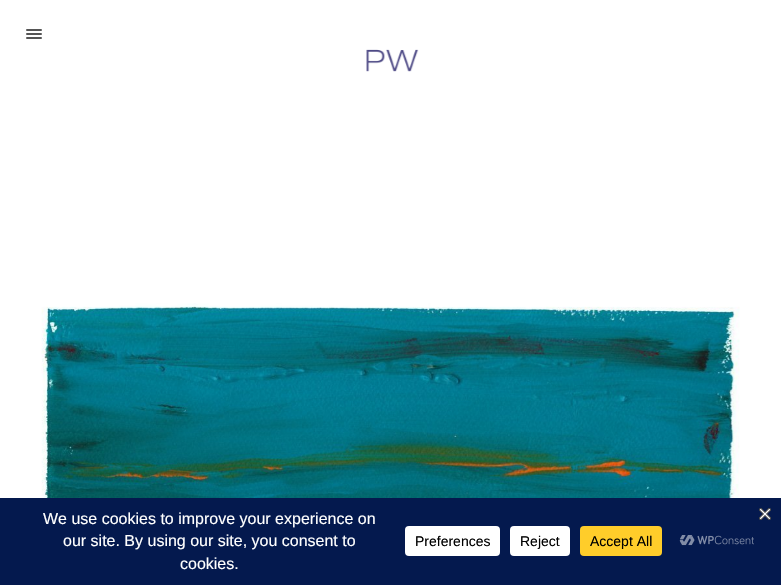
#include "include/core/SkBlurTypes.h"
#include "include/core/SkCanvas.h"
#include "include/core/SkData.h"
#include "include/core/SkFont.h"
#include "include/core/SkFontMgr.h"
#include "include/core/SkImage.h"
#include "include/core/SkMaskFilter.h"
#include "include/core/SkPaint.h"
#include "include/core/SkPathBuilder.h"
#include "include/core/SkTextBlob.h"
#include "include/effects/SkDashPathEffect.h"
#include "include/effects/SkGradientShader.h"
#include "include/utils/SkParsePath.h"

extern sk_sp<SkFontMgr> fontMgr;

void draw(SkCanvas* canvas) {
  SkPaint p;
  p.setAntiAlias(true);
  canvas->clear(SK_ColorWHITE);
  p.setColor(SkColorSetRGB(85, 85, 85));
  canvas->drawRoundRect(SkRect::MakeLTRB(26, 29, 42, 31), 1, 1, p);
  canvas->drawRoundRect(SkRect::MakeLTRB(26, 33, 42, 35), 1, 1, p);
  canvas->drawRoundRect(SkRect::MakeLTRB(26, 37, 42, 39), 1, 1, p);
  canvas->drawImageRect(SkImages::DeferredFromEncodedData(SkData::MakeFromFileName("images/1.png")), SkRect::MakeLTRB(366, 49, 419, 72), SkSamplingOptions());
  canvas->drawImageRect(SkImages::DeferredFromEncodedData(SkData::MakeFromFileName("images/2.png")), SkRect::MakeLTRB(41, 303, 740, 498), SkSamplingOptions());
  p.setColor(SkColorSetRGB(4, 25, 78));
  canvas->drawRect(SkRect::MakeLTRB(0, 498, 781, 585), p);
  p.setColor(SK_ColorWHITE);
  canvas->drawRoundRect(SkRect::MakeLTRB(405, 526, 500, 556), 4, 4, p);
  canvas->drawRoundRect(SkRect::MakeLTRB(510, 526, 570, 556), 4, 4, p);
  p.setColor(SkColorSetRGB(255, 205, 42));
  canvas->drawRoundRect(SkRect::MakeLTRB(580, 526, 662, 556), 4, 4, p);
  canvas->drawImageRect(SkImages::DeferredFromEncodedData(SkData::MakeFromFileName("images/3.png")), SkRect::MakeLTRB(679, 535, 754, 546), SkSamplingOptions());
  canvas->drawImageRect(SkImages::DeferredFromEncodedData(SkData::MakeFromFileName("images/4.png")), SkRect::MakeLTRB(759, 508, 771, 520), SkSamplingOptions());
  SkFont font1(fontMgr->matchFamilyStyle("Liberation Sans", SkFontStyle::Normal()), 16);
  font1.setSubpixel(true);
  p.setColor(SK_ColorWHITE);
  canvas->drawString("We use cookies to improve your experience on", 43, 524, font1, p);
  canvas->drawString("our site. By using our site, you consent to", 63, 546, font1, p);
  canvas->drawString("cookies.", 180, 569, font1, p);
  SkFont font2(fontMgr->matchFamilyStyle("Liberation Sans", SkFontStyle::Normal()), 14);
  font2.setSubpixel(true);
  p.setColor(SK_ColorBLACK);
  canvas->drawString("Preferences", 415, 546, font2, p);
  canvas->drawString("Reject", 520, 546, font2, p);
  canvas->drawString("Accept All", 590, 546, font2, p);
}
